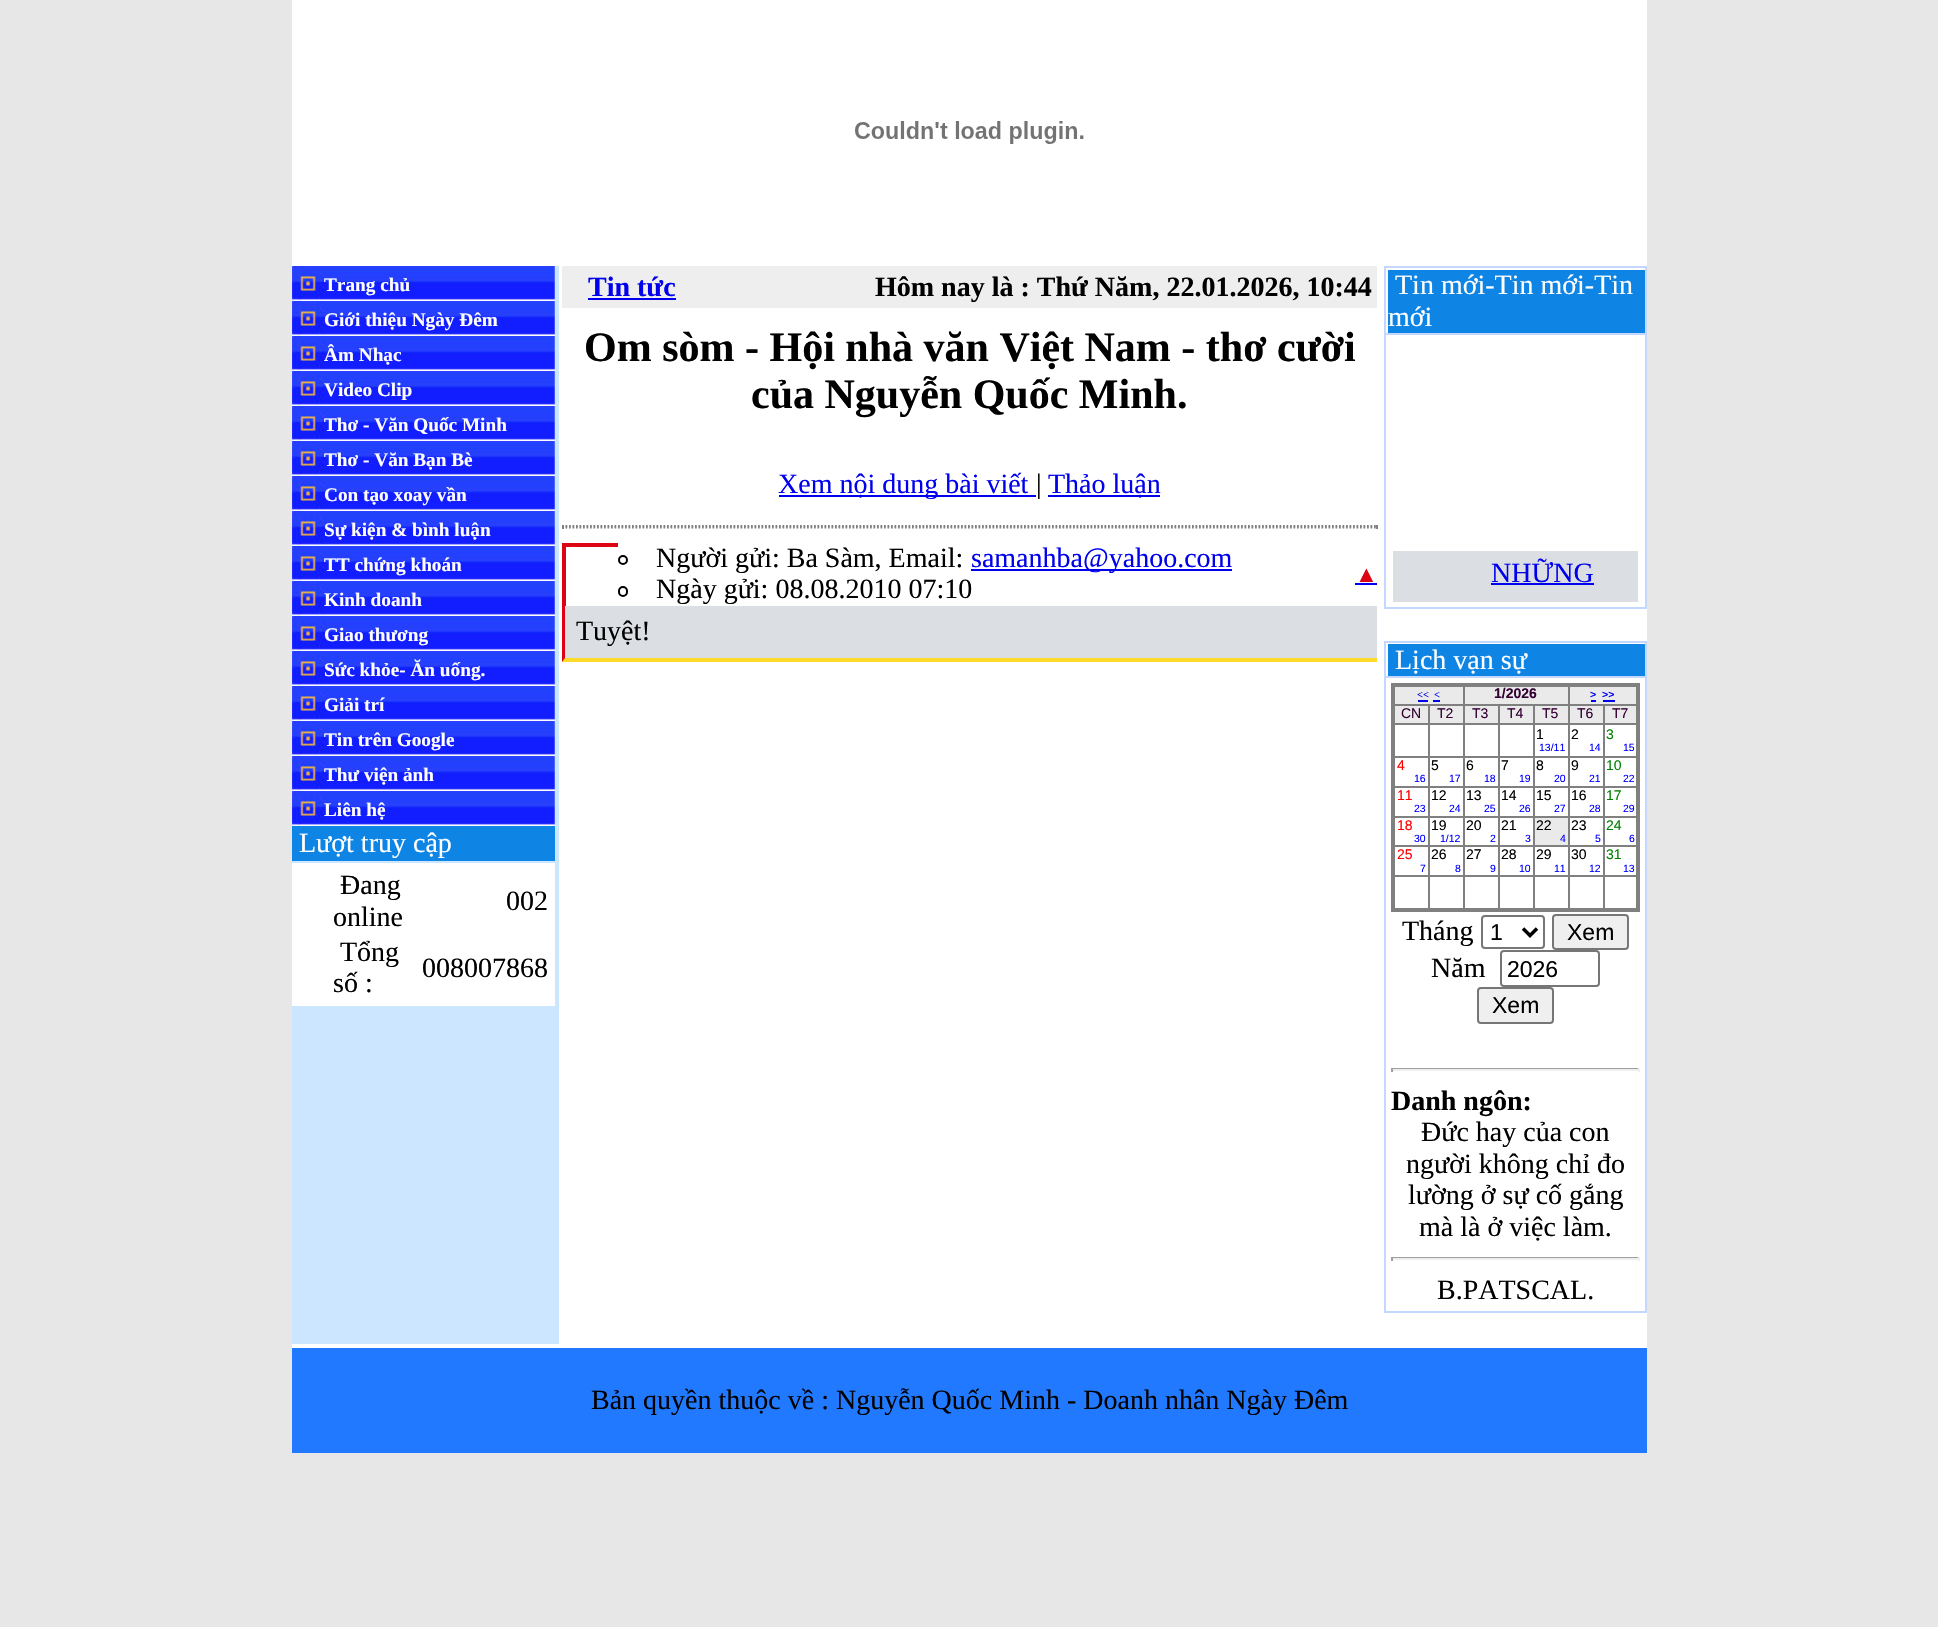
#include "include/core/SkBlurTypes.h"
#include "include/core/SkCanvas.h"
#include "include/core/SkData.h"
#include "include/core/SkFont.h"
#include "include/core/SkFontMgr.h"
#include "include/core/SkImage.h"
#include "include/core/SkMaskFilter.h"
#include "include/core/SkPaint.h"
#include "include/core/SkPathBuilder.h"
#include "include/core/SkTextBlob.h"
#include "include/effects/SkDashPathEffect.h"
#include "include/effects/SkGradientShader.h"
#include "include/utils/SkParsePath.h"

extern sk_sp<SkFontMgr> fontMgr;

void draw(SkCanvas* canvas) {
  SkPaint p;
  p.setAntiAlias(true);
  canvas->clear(SkColorSetRGB(231, 231, 231));
  p.setColor(SK_ColorWHITE);
  canvas->drawRect(SkRect::MakeLTRB(292, 0, 1647, 1348), p);
  canvas->drawImageRect(SkImages::DeferredFromEncodedData(SkData::MakeFromFileName("images/1.png")), SkRect::MakeLTRB(855, 121, 1084, 144), SkSamplingOptions());
  p.setColor(SkColorSetRGB(204, 230, 255));
  canvas->drawRect(SkRect::MakeLTRB(292, 266, 555, 1344), p);
  canvas->drawImageRect(SkImages::DeferredFromEncodedData(SkData::MakeFromFileName("images/2.png")), SkRect::MakeLTRB(292, 266, 555, 301), SkSamplingOptions());
  canvas->drawImageRect(SkImages::DeferredFromEncodedData(SkData::MakeFromFileName("images/3.png")), SkRect::MakeLTRB(292, 266, 324, 301), SkSamplingOptions());
  canvas->drawImageRect(SkImages::DeferredFromEncodedData(SkData::MakeFromFileName("images/2.png")), SkRect::MakeLTRB(292, 301, 555, 336), SkSamplingOptions());
  canvas->drawImageRect(SkImages::DeferredFromEncodedData(SkData::MakeFromFileName("images/3.png")), SkRect::MakeLTRB(292, 301, 324, 336), SkSamplingOptions());
  canvas->drawImageRect(SkImages::DeferredFromEncodedData(SkData::MakeFromFileName("images/2.png")), SkRect::MakeLTRB(292, 336, 555, 371), SkSamplingOptions());
  canvas->drawImageRect(SkImages::DeferredFromEncodedData(SkData::MakeFromFileName("images/3.png")), SkRect::MakeLTRB(292, 336, 324, 371), SkSamplingOptions());
  canvas->drawImageRect(SkImages::DeferredFromEncodedData(SkData::MakeFromFileName("images/2.png")), SkRect::MakeLTRB(292, 371, 555, 406), SkSamplingOptions());
  canvas->drawImageRect(SkImages::DeferredFromEncodedData(SkData::MakeFromFileName("images/3.png")), SkRect::MakeLTRB(292, 371, 324, 406), SkSamplingOptions());
  canvas->drawImageRect(SkImages::DeferredFromEncodedData(SkData::MakeFromFileName("images/2.png")), SkRect::MakeLTRB(292, 406, 555, 441), SkSamplingOptions());
  canvas->drawImageRect(SkImages::DeferredFromEncodedData(SkData::MakeFromFileName("images/3.png")), SkRect::MakeLTRB(292, 406, 324, 441), SkSamplingOptions());
  canvas->drawImageRect(SkImages::DeferredFromEncodedData(SkData::MakeFromFileName("images/2.png")), SkRect::MakeLTRB(292, 441, 555, 476), SkSamplingOptions());
  canvas->drawImageRect(SkImages::DeferredFromEncodedData(SkData::MakeFromFileName("images/3.png")), SkRect::MakeLTRB(292, 441, 324, 476), SkSamplingOptions());
  canvas->drawImageRect(SkImages::DeferredFromEncodedData(SkData::MakeFromFileName("images/2.png")), SkRect::MakeLTRB(292, 476, 555, 511), SkSamplingOptions());
  canvas->drawImageRect(SkImages::DeferredFromEncodedData(SkData::MakeFromFileName("images/3.png")), SkRect::MakeLTRB(292, 476, 324, 511), SkSamplingOptions());
  canvas->drawImageRect(SkImages::DeferredFromEncodedData(SkData::MakeFromFileName("images/2.png")), SkRect::MakeLTRB(292, 511, 555, 546), SkSamplingOptions());
  canvas->drawImageRect(SkImages::DeferredFromEncodedData(SkData::MakeFromFileName("images/3.png")), SkRect::MakeLTRB(292, 511, 324, 546), SkSamplingOptions());
  canvas->drawImageRect(SkImages::DeferredFromEncodedData(SkData::MakeFromFileName("images/2.png")), SkRect::MakeLTRB(292, 546, 555, 581), SkSamplingOptions());
  canvas->drawImageRect(SkImages::DeferredFromEncodedData(SkData::MakeFromFileName("images/3.png")), SkRect::MakeLTRB(292, 546, 324, 581), SkSamplingOptions());
  canvas->drawImageRect(SkImages::DeferredFromEncodedData(SkData::MakeFromFileName("images/2.png")), SkRect::MakeLTRB(292, 581, 555, 616), SkSamplingOptions());
  canvas->drawImageRect(SkImages::DeferredFromEncodedData(SkData::MakeFromFileName("images/3.png")), SkRect::MakeLTRB(292, 581, 324, 616), SkSamplingOptions());
  canvas->drawImageRect(SkImages::DeferredFromEncodedData(SkData::MakeFromFileName("images/2.png")), SkRect::MakeLTRB(292, 616, 555, 651), SkSamplingOptions());
  canvas->drawImageRect(SkImages::DeferredFromEncodedData(SkData::MakeFromFileName("images/3.png")), SkRect::MakeLTRB(292, 616, 324, 651), SkSamplingOptions());
  canvas->drawImageRect(SkImages::DeferredFromEncodedData(SkData::MakeFromFileName("images/2.png")), SkRect::MakeLTRB(292, 651, 555, 686), SkSamplingOptions());
  canvas->drawImageRect(SkImages::DeferredFromEncodedData(SkData::MakeFromFileName("images/3.png")), SkRect::MakeLTRB(292, 651, 324, 686), SkSamplingOptions());
  canvas->drawImageRect(SkImages::DeferredFromEncodedData(SkData::MakeFromFileName("images/2.png")), SkRect::MakeLTRB(292, 686, 555, 721), SkSamplingOptions());
  canvas->drawImageRect(SkImages::DeferredFromEncodedData(SkData::MakeFromFileName("images/3.png")), SkRect::MakeLTRB(292, 686, 324, 721), SkSamplingOptions());
  canvas->drawImageRect(SkImages::DeferredFromEncodedData(SkData::MakeFromFileName("images/2.png")), SkRect::MakeLTRB(292, 721, 555, 756), SkSamplingOptions());
  canvas->drawImageRect(SkImages::DeferredFromEncodedData(SkData::MakeFromFileName("images/3.png")), SkRect::MakeLTRB(292, 721, 324, 756), SkSamplingOptions());
  canvas->drawImageRect(SkImages::DeferredFromEncodedData(SkData::MakeFromFileName("images/2.png")), SkRect::MakeLTRB(292, 756, 555, 791), SkSamplingOptions());
  canvas->drawImageRect(SkImages::DeferredFromEncodedData(SkData::MakeFromFileName("images/3.png")), SkRect::MakeLTRB(292, 756, 324, 791), SkSamplingOptions());
  canvas->drawImageRect(SkImages::DeferredFromEncodedData(SkData::MakeFromFileName("images/2.png")), SkRect::MakeLTRB(292, 791, 555, 826), SkSamplingOptions());
  canvas->drawImageRect(SkImages::DeferredFromEncodedData(SkData::MakeFromFileName("images/3.png")), SkRect::MakeLTRB(292, 791, 324, 826), SkSamplingOptions());
  p.setColor(SkColorSetRGB(14, 132, 228));
  canvas->drawRect(SkRect::MakeLTRB(292, 826, 555, 861), p);
  p.setColor(SK_ColorWHITE);
  canvas->drawRect(SkRect::MakeLTRB(292, 863, 555, 1006), p);
  p.setColor(SkColorSetRGB(203, 231, 255));
  canvas->drawRect(SkRect::MakeLTRB(555, 266, 559, 1344), p);
  p.setColor(SkColorSetRGB(238, 238, 238));
  canvas->drawRect(SkRect::MakeLTRB(562, 266, 1377, 308), p);
  p.setColor(SkColorSetRGB(0, 0, 238));
  canvas->drawRect(SkRect::MakeLTRB(588, 298, 676, 300), p);
  canvas->drawRect(SkRect::MakeLTRB(779, 495, 1036, 497), p);
  canvas->drawRect(SkRect::MakeLTRB(1048, 495, 1160, 497), p);
  p.setStyle(SkPaint::kStroke_Style);
  p.setStrokeWidth(1.8f);
  p.setColor(SkColorSetRGB(128, 128, 128));
  p.setPathEffect(SkDashPathEffect::Make({{1.75f, 1.75f}}, 0));
  canvas->drawPath(SkPathBuilder().moveTo(562, 526).lineTo(1377, 526).detach(), p);
  p.setPathEffect(nullptr);
  p.setStyle(SkPaint::kFill_Style);
  canvas->drawRect(SkRect::MakeLTRB(1376, 525, 1378, 529), p);
  p.setStyle(SkPaint::kStroke_Style);
  p.setPathEffect(SkDashPathEffect::Make({{1.75f, 1.75f}}, 0));
  canvas->drawPath(SkPathBuilder().moveTo(562, 527.5f).lineTo(1377, 527.5f).detach(), p);
  p.setPathEffect(nullptr);
  p.setStyle(SkPaint::kFill_Style);
  canvas->drawRect(SkRect::MakeLTRB(562, 525, 564, 529), p);
  p.setColor(SkColorSetRGB(220, 3, 18));
  canvas->drawRect(SkRect::MakeLTRB(562, 543, 566, 606), p);
  canvas->drawRect(SkRect::MakeLTRB(565, 543, 618, 547), p);
  p.setStyle(SkPaint::kStroke_Style);
  p.setStrokeWidth(2);
  p.setColor(SK_ColorBLACK);
  canvas->drawCircle(623, 560, 4, p);
  p.setStyle(SkPaint::kFill_Style);
  p.setColor(SkColorSetRGB(0, 0, 238));
  canvas->drawRect(SkRect::MakeLTRB(971, 569, 1232, 571), p);
  p.setStyle(SkPaint::kStroke_Style);
  p.setColor(SK_ColorBLACK);
  canvas->drawRoundRect(SkRect::MakeLTRB(619, 587, 627, 596), 4, 4, p);
  p.setStyle(SkPaint::kFill_Style);
  p.setColor(SkColorSetRGB(0, 0, 238));
  canvas->drawRect(SkRect::MakeLTRB(1355, 583, 1377, 585), p);
  p.setColor(SkColorSetRGB(219, 222, 227));
  canvas->drawRect(SkRect::MakeLTRB(562, 606, 1377, 662), p);
  p.setColor(SkColorSetRGB(255, 219, 41));
  canvas->drawPath(SkPathBuilder().moveTo(1377, 662).lineTo(562, 662).lineTo(565, 658).lineTo(1377, 658).close().detach(), p);
  p.setColor(SkColorSetRGB(220, 3, 18));
  canvas->drawPath(SkPathBuilder().moveTo(562, 662).lineTo(562, 606).lineTo(565, 606).lineTo(565, 658).close().detach(), p);
  p.setColor(SkColorSetRGB(196, 215, 255));
  canvas->drawRect(SkRect::MakeLTRB(1384, 266, 1647, 268), p);
  canvas->drawRect(SkRect::MakeLTRB(1645, 266, 1647, 609), p);
  canvas->drawRect(SkRect::MakeLTRB(1384, 607, 1647, 609), p);
  canvas->drawRect(SkRect::MakeLTRB(1384, 266, 1386, 609), p);
  p.setColor(SkColorSetRGB(14, 132, 228));
  canvas->drawRect(SkRect::MakeLTRB(1388, 270, 1645, 333), p);
  p.setColor(SkColorSetRGB(196, 215, 255));
  canvas->drawRect(SkRect::MakeLTRB(1384, 333, 1647, 335), p);
  p.setColor(SkColorSetRGB(219, 222, 227));
  canvas->drawRect(SkRect::MakeLTRB(1393, 551, 1638, 602), p);
  p.setColor(SkColorSetRGB(0, 0, 238));
  canvas->drawRect(SkRect::MakeLTRB(1491, 583, 1594, 585), p);
  p.setColor(SkColorSetRGB(196, 215, 255));
  canvas->drawRect(SkRect::MakeLTRB(1384, 641, 1647, 643), p);
  canvas->drawRect(SkRect::MakeLTRB(1645, 641, 1647, 1313), p);
  canvas->drawRect(SkRect::MakeLTRB(1384, 1311, 1647, 1313), p);
  canvas->drawRect(SkRect::MakeLTRB(1384, 641, 1386, 1313), p);
  p.setColor(SkColorSetRGB(14, 132, 228));
  canvas->drawRect(SkRect::MakeLTRB(1388, 644, 1645, 676), p);
  p.setColor(SkColorSetRGB(196, 215, 255));
  canvas->drawRect(SkRect::MakeLTRB(1384, 676, 1647, 678), p);
  p.setColor(SkColorSetRGB(128, 128, 128));
  canvas->drawRect(SkRect::MakeLTRB(1603, 704, 1640, 706), p);
  canvas->drawRect(SkRect::MakeLTRB(1603, 723, 1640, 725), p);
  canvas->drawRect(SkRect::MakeLTRB(1603, 756, 1640, 758), p);
  canvas->drawRect(SkRect::MakeLTRB(1603, 786, 1640, 788), p);
  canvas->drawRect(SkRect::MakeLTRB(1603, 816, 1640, 818), p);
  canvas->drawRect(SkRect::MakeLTRB(1603, 845, 1640, 847), p);
  canvas->drawRect(SkRect::MakeLTRB(1603, 875, 1640, 877), p);
  canvas->drawRect(SkRect::MakeLTRB(1603, 875, 1605, 912), p);
  canvas->drawRect(SkRect::MakeLTRB(1568, 875, 1605, 877), p);
  canvas->drawRect(SkRect::MakeLTRB(1603, 845, 1605, 877), p);
  canvas->drawRect(SkRect::MakeLTRB(1568, 845, 1605, 847), p);
  canvas->drawRect(SkRect::MakeLTRB(1603, 816, 1605, 847), p);
  canvas->drawRect(SkRect::MakeLTRB(1568, 816, 1605, 818), p);
  canvas->drawRect(SkRect::MakeLTRB(1603, 786, 1605, 817), p);
  canvas->drawRect(SkRect::MakeLTRB(1568, 786, 1605, 788), p);
  canvas->drawRect(SkRect::MakeLTRB(1603, 756, 1605, 788), p);
  canvas->drawRect(SkRect::MakeLTRB(1568, 756, 1605, 758), p);
  canvas->drawRect(SkRect::MakeLTRB(1603, 723, 1605, 758), p);
  canvas->drawRect(SkRect::MakeLTRB(1568, 723, 1605, 725), p);
  canvas->drawRect(SkRect::MakeLTRB(1603, 704, 1605, 725), p);
  canvas->drawRect(SkRect::MakeLTRB(1568, 704, 1605, 706), p);
  canvas->drawRect(SkRect::MakeLTRB(1568, 875, 1570, 912), p);
  canvas->drawRect(SkRect::MakeLTRB(1533, 875, 1570, 877), p);
  canvas->drawRect(SkRect::MakeLTRB(1568, 845, 1570, 877), p);
  canvas->drawRect(SkRect::MakeLTRB(1533, 845, 1570, 847), p);
  canvas->drawRect(SkRect::MakeLTRB(1568, 816, 1570, 847), p);
  canvas->drawRect(SkRect::MakeLTRB(1533, 816, 1570, 818), p);
  canvas->drawRect(SkRect::MakeLTRB(1568, 786, 1570, 817), p);
  canvas->drawRect(SkRect::MakeLTRB(1533, 786, 1570, 788), p);
  canvas->drawRect(SkRect::MakeLTRB(1568, 756, 1570, 788), p);
  canvas->drawRect(SkRect::MakeLTRB(1533, 756, 1570, 758), p);
  canvas->drawRect(SkRect::MakeLTRB(1568, 723, 1570, 758), p);
  canvas->drawRect(SkRect::MakeLTRB(1533, 723, 1570, 725), p);
  canvas->drawRect(SkRect::MakeLTRB(1568, 704, 1570, 725), p);
  canvas->drawRect(SkRect::MakeLTRB(1533, 704, 1570, 706), p);
  canvas->drawRect(SkRect::MakeLTRB(1533, 875, 1535, 912), p);
  canvas->drawRect(SkRect::MakeLTRB(1498, 875, 1535, 877), p);
  canvas->drawRect(SkRect::MakeLTRB(1533, 845, 1535, 877), p);
  canvas->drawRect(SkRect::MakeLTRB(1498, 845, 1535, 847), p);
  canvas->drawRect(SkRect::MakeLTRB(1533, 816, 1535, 847), p);
  canvas->drawRect(SkRect::MakeLTRB(1498, 816, 1535, 818), p);
  canvas->drawRect(SkRect::MakeLTRB(1533, 786, 1535, 817), p);
  canvas->drawRect(SkRect::MakeLTRB(1498, 786, 1535, 788), p);
  canvas->drawRect(SkRect::MakeLTRB(1533, 756, 1535, 788), p);
  canvas->drawRect(SkRect::MakeLTRB(1498, 756, 1535, 758), p);
  canvas->drawRect(SkRect::MakeLTRB(1533, 723, 1535, 758), p);
  canvas->drawRect(SkRect::MakeLTRB(1498, 723, 1535, 725), p);
  canvas->drawRect(SkRect::MakeLTRB(1533, 704, 1535, 725), p);
  canvas->drawRect(SkRect::MakeLTRB(1498, 704, 1535, 706), p);
  canvas->drawRect(SkRect::MakeLTRB(1498, 875, 1500, 912), p);
  canvas->drawRect(SkRect::MakeLTRB(1463, 875, 1500, 877), p);
  canvas->drawRect(SkRect::MakeLTRB(1498, 845, 1500, 877), p);
  canvas->drawRect(SkRect::MakeLTRB(1463, 845, 1500, 847), p);
  canvas->drawRect(SkRect::MakeLTRB(1498, 816, 1500, 847), p);
  canvas->drawRect(SkRect::MakeLTRB(1463, 816, 1500, 818), p);
  canvas->drawRect(SkRect::MakeLTRB(1498, 786, 1500, 817), p);
  canvas->drawRect(SkRect::MakeLTRB(1463, 786, 1500, 788), p);
  canvas->drawRect(SkRect::MakeLTRB(1498, 756, 1500, 788), p);
  canvas->drawRect(SkRect::MakeLTRB(1463, 756, 1500, 758), p);
  canvas->drawRect(SkRect::MakeLTRB(1498, 723, 1500, 758), p);
  canvas->drawRect(SkRect::MakeLTRB(1463, 723, 1500, 725), p);
  canvas->drawRect(SkRect::MakeLTRB(1498, 704, 1500, 725), p);
  canvas->drawRect(SkRect::MakeLTRB(1463, 704, 1500, 706), p);
  canvas->drawRect(SkRect::MakeLTRB(1463, 875, 1465, 912), p);
  canvas->drawRect(SkRect::MakeLTRB(1428, 875, 1465, 877), p);
  canvas->drawRect(SkRect::MakeLTRB(1463, 845, 1465, 877), p);
  canvas->drawRect(SkRect::MakeLTRB(1428, 845, 1465, 847), p);
  canvas->drawRect(SkRect::MakeLTRB(1463, 816, 1465, 847), p);
  canvas->drawRect(SkRect::MakeLTRB(1428, 816, 1465, 818), p);
  canvas->drawRect(SkRect::MakeLTRB(1463, 786, 1465, 817), p);
  canvas->drawRect(SkRect::MakeLTRB(1428, 786, 1465, 788), p);
  canvas->drawRect(SkRect::MakeLTRB(1463, 756, 1465, 788), p);
  canvas->drawRect(SkRect::MakeLTRB(1428, 756, 1465, 758), p);
  canvas->drawRect(SkRect::MakeLTRB(1463, 723, 1465, 758), p);
  canvas->drawRect(SkRect::MakeLTRB(1428, 723, 1465, 725), p);
  canvas->drawRect(SkRect::MakeLTRB(1463, 704, 1465, 725), p);
  canvas->drawRect(SkRect::MakeLTRB(1428, 704, 1465, 706), p);
  canvas->drawRect(SkRect::MakeLTRB(1463, 684, 1465, 705), p);
  canvas->drawRect(SkRect::MakeLTRB(1568, 684, 1570, 705), p);
  canvas->drawRect(SkRect::MakeLTRB(1391, 683, 1640, 687), p);
  canvas->drawRect(SkRect::MakeLTRB(1636, 683, 1640, 912), p);
  canvas->drawRect(SkRect::MakeLTRB(1428, 875, 1430, 912), p);
  canvas->drawRect(SkRect::MakeLTRB(1391, 908, 1640, 912), p);
  canvas->drawRect(SkRect::MakeLTRB(1393, 875, 1430, 877), p);
  canvas->drawRect(SkRect::MakeLTRB(1428, 845, 1430, 877), p);
  canvas->drawRect(SkRect::MakeLTRB(1393, 845, 1430, 847), p);
  canvas->drawRect(SkRect::MakeLTRB(1428, 816, 1430, 847), p);
  canvas->drawRect(SkRect::MakeLTRB(1393, 816, 1430, 818), p);
  canvas->drawRect(SkRect::MakeLTRB(1428, 786, 1430, 817), p);
  canvas->drawRect(SkRect::MakeLTRB(1393, 786, 1430, 788), p);
  canvas->drawRect(SkRect::MakeLTRB(1428, 756, 1430, 788), p);
  canvas->drawRect(SkRect::MakeLTRB(1393, 756, 1430, 758), p);
  canvas->drawRect(SkRect::MakeLTRB(1428, 723, 1430, 758), p);
  canvas->drawRect(SkRect::MakeLTRB(1393, 723, 1430, 725), p);
  canvas->drawRect(SkRect::MakeLTRB(1428, 704, 1430, 725), p);
  canvas->drawRect(SkRect::MakeLTRB(1393, 704, 1430, 706), p);
  canvas->drawRect(SkRect::MakeLTRB(1391, 683, 1395, 912), p);
  p.setColor(SkColorSetRGB(234, 234, 234));
  canvas->drawRect(SkRect::MakeLTRB(1395, 687, 1463, 704), p);
  p.setColor(SkColorSetRGB(0, 0, 238));
  canvas->drawRect(SkRect::MakeLTRB(1418, 700, 1428, 702), p);
  canvas->drawRect(SkRect::MakeLTRB(1433, 700, 1440, 702), p);
  p.setColor(SkColorSetRGB(234, 234, 234));
  canvas->drawRect(SkRect::MakeLTRB(1465, 687, 1568, 704), p);
  canvas->drawRect(SkRect::MakeLTRB(1570, 687, 1636, 704), p);
  p.setColor(SkColorSetRGB(0, 0, 238));
  canvas->drawRect(SkRect::MakeLTRB(1591, 700, 1596, 702), p);
  canvas->drawRect(SkRect::MakeLTRB(1603, 700, 1615, 702), p);
  p.setColor(SkColorSetRGB(234, 234, 234));
  canvas->drawRect(SkRect::MakeLTRB(1395, 706, 1428, 723), p);
  canvas->drawRect(SkRect::MakeLTRB(1430, 706, 1463, 723), p);
  canvas->drawRect(SkRect::MakeLTRB(1465, 706, 1498, 723), p);
  canvas->drawRect(SkRect::MakeLTRB(1500, 706, 1533, 723), p);
  canvas->drawRect(SkRect::MakeLTRB(1535, 706, 1568, 723), p);
  canvas->drawRect(SkRect::MakeLTRB(1570, 706, 1603, 723), p);
  canvas->drawRect(SkRect::MakeLTRB(1605, 706, 1636, 723), p);
  canvas->drawRect(SkRect::MakeLTRB(1535, 818, 1568, 845), p);
  p.setStyle(SkPaint::kStroke_Style);
  p.setColor(SkColorSetRGB(118, 118, 118));
  canvas->drawRoundRect(SkRect::MakeLTRB(1482, 916, 1544, 948), 3, 3, p);
  p.setStrokeWidth(3.5f);
  p.setColor(SK_ColorBLACK);
  canvas->drawPath(SkPathBuilder().moveTo(1523, 928.5f).lineTo(1530, 935.5f).lineTo(1537, 928.5f).detach(), p);
  p.setStyle(SkPaint::kFill_Style);
  p.setColor(SkColorSetRGB(239, 239, 239));
  canvas->drawRoundRect(SkRect::MakeLTRB(1553, 915, 1628, 949), 3, 3, p);
  p.setStyle(SkPaint::kStroke_Style);
  p.setStrokeWidth(2);
  p.setColor(SkColorSetRGB(118, 118, 118));
  canvas->drawRoundRect(SkRect::MakeLTRB(1553, 915, 1628, 949), 3, 3, p);
  canvas->drawRoundRect(SkRect::MakeLTRB(1501, 951, 1599, 986), 3, 3, p);
  p.setStyle(SkPaint::kFill_Style);
  p.setColor(SkColorSetRGB(239, 239, 239));
  canvas->drawRoundRect(SkRect::MakeLTRB(1478, 988, 1553, 1023), 3, 3, p);
  p.setStyle(SkPaint::kStroke_Style);
  p.setColor(SkColorSetRGB(118, 118, 118));
  canvas->drawRoundRect(SkRect::MakeLTRB(1478, 988, 1553, 1023), 3, 3, p);
  p.setStyle(SkPaint::kFill_Style);
  p.setColor(SkColorSetRGB(159, 159, 159));
  canvas->drawRect(SkRect::MakeLTRB(1391, 1068, 1640, 1069), p);
  p.setColor(SkColorSetRGB(238, 238, 238));
  canvas->drawRect(SkRect::MakeLTRB(1638, 1068, 1640, 1072), p);
  canvas->drawRect(SkRect::MakeLTRB(1391, 1069, 1640, 1071), p);
  p.setColor(SkColorSetRGB(159, 159, 159));
  canvas->drawRect(SkRect::MakeLTRB(1391, 1068, 1393, 1072), p);
  canvas->drawRect(SkRect::MakeLTRB(1391, 1257, 1640, 1258), p);
  p.setColor(SkColorSetRGB(238, 238, 238));
  canvas->drawRect(SkRect::MakeLTRB(1638, 1257, 1640, 1261), p);
  canvas->drawRect(SkRect::MakeLTRB(1391, 1258, 1640, 1260), p);
  p.setColor(SkColorSetRGB(159, 159, 159));
  canvas->drawRect(SkRect::MakeLTRB(1391, 1257, 1393, 1261), p);
  p.setColor(SkColorSetRGB(33, 121, 255));
  canvas->drawRect(SkRect::MakeLTRB(292, 1348, 1647, 1453), p);
  SkFont font1(fontMgr->matchFamilyStyle("Liberation Serif", SkFontStyle::Bold()), 19.25f);
  font1.setSubpixel(true);
  p.setColor(SK_ColorWHITE);
  canvas->drawString("Trang chủ", 324, 291, font1, p);
  canvas->drawString("Giới thiệu Ngày Đêm", 324, 326, font1, p);
  canvas->drawString("Âm Nhạc", 324, 361, font1, p);
  canvas->drawString("Video Clip", 324, 396, font1, p);
  canvas->drawString("Thơ - Văn Quốc Minh", 324, 431, font1, p);
  canvas->drawString("Thơ - Văn Bạn Bè", 324, 466, font1, p);
  canvas->drawString("Con tạo xoay vần", 324, 501, font1, p);
  canvas->drawString("Sự kiện & bình luận", 324, 536, font1, p);
  canvas->drawString("TT chứng khoán", 324, 571, font1, p);
  canvas->drawString("Kinh doanh", 324, 606, font1, p);
  canvas->drawString("Giao thương", 324, 641, font1, p);
  canvas->drawString("Sức khỏe- Ăn uống.", 324, 676, font1, p);
  canvas->drawString("Giải trí", 324, 711, font1, p);
  canvas->drawString("Tin trên Google", 324, 746, font1, p);
  canvas->drawString("Thư viện ảnh", 324, 781, font1, p);
  canvas->drawString("Liên hệ", 324, 816, font1, p);
  SkFont font2(fontMgr->matchFamilyStyle("Liberation Serif", SkFontStyle::Normal()), 28);
  font2.setSubpixel(true);
  canvas->drawString("Lượt truy cập", 299, 852, font2, p);
  p.setColor(SK_ColorBLACK);
  canvas->drawString("Đang", 340, 894, font2, p);
  canvas->drawString("online", 333, 926, font2, p);
  canvas->drawString("002", 506, 910, font2, p);
  canvas->drawString("Tổng", 340, 961, font2, p);
  canvas->drawString("số :", 333, 992, font2, p);
  canvas->drawString("008007868", 422, 977, font2, p);
  SkFont font3(fontMgr->matchFamilyStyle("Liberation Serif", SkFontStyle::Bold()), 28);
  font3.setSubpixel(true);
  p.setColor(SkColorSetRGB(0, 0, 238));
  canvas->drawString("Tin tức", 588, 296, font3, p);
  p.setColor(SK_ColorBLACK);
  canvas->drawString("Hôm nay là : Thứ Năm, 22.01.2026, 10:44", 875, 296, font3, p);
  SkFont font4(fontMgr->matchFamilyStyle("Liberation Serif", SkFontStyle::Bold()), 42);
  font4.setSubpixel(true);
  canvas->drawString("Om sòm - Hội nhà văn Việt Nam - thơ cười", 584, 361, font4, p);
  canvas->drawString("của Nguyễn Quốc Minh.", 751, 408, font4, p);
  p.setColor(SkColorSetRGB(0, 0, 238));
  canvas->drawString("Xem nội dung bài viết", 778, 493, font2, p);
  p.setColor(SK_ColorBLACK);
  canvas->drawString("|", 1036, 493, font2, p);
  p.setColor(SkColorSetRGB(0, 0, 238));
  canvas->drawString("Thảo luận", 1048, 493, font2, p);
  p.setColor(SK_ColorBLACK);
  canvas->drawString("Người gửi: Ba Sàm, Email:", 656, 567, font2, p);
  p.setColor(SkColorSetRGB(0, 0, 238));
  canvas->drawString("samanhba@yahoo.com", 971, 567, font2, p);
  p.setColor(SK_ColorBLACK);
  canvas->drawString("Ngày gửi: 08.08.2010 07:10", 656, 598, font2, p);
  SkFont font5(fontMgr->matchFamilyStyle("Liberation Sans", SkFontStyle::Normal()), 23);
  font5.setSubpixel(true);
  p.setColor(SkColorSetRGB(220, 3, 18));
  canvas->drawString("▲", 1355, 582, font5, p);
  p.setColor(SK_ColorBLACK);
  canvas->drawString("Tuyệt!", 576, 640, font2, p);
  p.setColor(SK_ColorWHITE);
  canvas->drawString("Tin mới-Tin mới-Tin", 1395, 294, font2, p);
  canvas->drawString("mới", 1388, 326, font2, p);
  p.setColor(SkColorSetRGB(0, 0, 238));
  canvas->drawString("NHỮNG", 1491, 582, font2, p);
  p.setColor(SK_ColorWHITE);
  canvas->drawString("Lịch vạn sự", 1395, 669, font2, p);
  SkFont font6(fontMgr->matchFamilyStyle("Liberation Serif", SkFontStyle::Bold()), 10.5f);
  font6.setSubpixel(true);
  p.setColor(SkColorSetRGB(0, 0, 238));
  canvas->drawString("<<", 1417, 698, font6, p);
  canvas->drawString("<", 1434, 698, font6, p);
  SkFont font7(fontMgr->matchFamilyStyle("Liberation Sans", SkFontStyle::Bold()), 14);
  font7.setSubpixel(true);
  p.setColor(SkColorSetRGB(51, 0, 51));
  canvas->drawString("1/2026", 1494, 698, font7, p);
  SkFont font8(fontMgr->matchFamilyStyle("Liberation Sans", SkFontStyle::Bold()), 10.5f);
  font8.setSubpixel(true);
  p.setColor(SkColorSetRGB(0, 0, 238));
  canvas->drawString(">", 1590, 698, font8, p);
  canvas->drawString(">>", 1602, 698, font8, p);
  SkFont font9(fontMgr->matchFamilyStyle("Liberation Sans", SkFontStyle::Normal()), 14);
  font9.setSubpixel(true);
  p.setColor(SkColorSetRGB(51, 0, 51));
  canvas->drawString("CN", 1401, 718, font9, p);
  canvas->drawString("T2", 1437, 718, font9, p);
  canvas->drawString("T3", 1472, 718, font9, p);
  canvas->drawString("T4", 1507, 718, font9, p);
  canvas->drawString("T5", 1542, 718, font9, p);
  canvas->drawString("T6", 1577, 718, font9, p);
  canvas->drawString("T7", 1612, 718, font9, p);
  p.setColor(SK_ColorBLACK);
  canvas->drawString("1", 1536, 739, font9, p);
  SkFont font10(fontMgr->matchFamilyStyle("Liberation Sans", SkFontStyle::Normal()), 10.5f);
  font10.setSubpixel(true);
  p.setColor(SkColorSetRGB(0, 0, 255));
  canvas->drawString("13/11", 1539, 751, font10, p);
  p.setColor(SK_ColorBLACK);
  canvas->drawString("2", 1571, 739, font9, p);
  p.setColor(SkColorSetRGB(0, 0, 255));
  canvas->drawString("14", 1589, 751, font10, p);
  p.setColor(SkColorSetRGB(0, 128, 0));
  canvas->drawString("3", 1606, 739, font9, p);
  p.setColor(SkColorSetRGB(0, 0, 255));
  canvas->drawString("15", 1623, 751, font10, p);
  p.setColor(SkColorSetRGB(255, 0, 0));
  canvas->drawString("4", 1397, 770, font9, p);
  p.setColor(SkColorSetRGB(0, 0, 255));
  canvas->drawString("16", 1414, 782, font10, p);
  p.setColor(SK_ColorBLACK);
  canvas->drawString("5", 1431, 770, font9, p);
  p.setColor(SkColorSetRGB(0, 0, 255));
  canvas->drawString("17", 1449, 782, font10, p);
  p.setColor(SK_ColorBLACK);
  canvas->drawString("6", 1466, 770, font9, p);
  p.setColor(SkColorSetRGB(0, 0, 255));
  canvas->drawString("18", 1484, 782, font10, p);
  p.setColor(SK_ColorBLACK);
  canvas->drawString("7", 1501, 770, font9, p);
  p.setColor(SkColorSetRGB(0, 0, 255));
  canvas->drawString("19", 1519, 782, font10, p);
  p.setColor(SK_ColorBLACK);
  canvas->drawString("8", 1536, 770, font9, p);
  p.setColor(SkColorSetRGB(0, 0, 255));
  canvas->drawString("20", 1554, 782, font10, p);
  p.setColor(SK_ColorBLACK);
  canvas->drawString("9", 1571, 770, font9, p);
  p.setColor(SkColorSetRGB(0, 0, 255));
  canvas->drawString("21", 1589, 782, font10, p);
  p.setColor(SkColorSetRGB(0, 128, 0));
  canvas->drawString("10", 1606, 770, font9, p);
  p.setColor(SkColorSetRGB(0, 0, 255));
  canvas->drawString("22", 1623, 782, font10, p);
  p.setColor(SkColorSetRGB(255, 0, 0));
  canvas->drawString("11", 1397, 800, font9, p);
  p.setColor(SkColorSetRGB(0, 0, 255));
  canvas->drawString("23", 1414, 812, font10, p);
  p.setColor(SK_ColorBLACK);
  canvas->drawString("12", 1431, 800, font9, p);
  p.setColor(SkColorSetRGB(0, 0, 255));
  canvas->drawString("24", 1449, 812, font10, p);
  p.setColor(SK_ColorBLACK);
  canvas->drawString("13", 1466, 800, font9, p);
  p.setColor(SkColorSetRGB(0, 0, 255));
  canvas->drawString("25", 1484, 812, font10, p);
  p.setColor(SK_ColorBLACK);
  canvas->drawString("14", 1501, 800, font9, p);
  p.setColor(SkColorSetRGB(0, 0, 255));
  canvas->drawString("26", 1519, 812, font10, p);
  p.setColor(SK_ColorBLACK);
  canvas->drawString("15", 1536, 800, font9, p);
  p.setColor(SkColorSetRGB(0, 0, 255));
  canvas->drawString("27", 1554, 812, font10, p);
  p.setColor(SK_ColorBLACK);
  canvas->drawString("16", 1571, 800, font9, p);
  p.setColor(SkColorSetRGB(0, 0, 255));
  canvas->drawString("28", 1589, 812, font10, p);
  p.setColor(SkColorSetRGB(0, 128, 0));
  canvas->drawString("17", 1606, 800, font9, p);
  p.setColor(SkColorSetRGB(0, 0, 255));
  canvas->drawString("29", 1623, 812, font10, p);
  p.setColor(SkColorSetRGB(255, 0, 0));
  canvas->drawString("18", 1397, 830, font9, p);
  p.setColor(SkColorSetRGB(0, 0, 255));
  canvas->drawString("30", 1414, 842, font10, p);
  p.setColor(SK_ColorBLACK);
  canvas->drawString("19", 1431, 830, font9, p);
  p.setColor(SkColorSetRGB(0, 0, 255));
  canvas->drawString("1/12", 1440, 842, font10, p);
  p.setColor(SK_ColorBLACK);
  canvas->drawString("20", 1466, 830, font9, p);
  p.setColor(SkColorSetRGB(0, 0, 255));
  canvas->drawString("2", 1490, 842, font10, p);
  p.setColor(SK_ColorBLACK);
  canvas->drawString("21", 1501, 830, font9, p);
  p.setColor(SkColorSetRGB(0, 0, 255));
  canvas->drawString("3", 1525, 842, font10, p);
  p.setColor(SK_ColorBLACK);
  canvas->drawString("22", 1536, 830, font9, p);
  p.setColor(SkColorSetRGB(0, 0, 255));
  canvas->drawString("4", 1560, 842, font10, p);
  p.setColor(SK_ColorBLACK);
  canvas->drawString("23", 1571, 830, font9, p);
  p.setColor(SkColorSetRGB(0, 0, 255));
  canvas->drawString("5", 1595, 842, font10, p);
  p.setColor(SkColorSetRGB(0, 128, 0));
  canvas->drawString("24", 1606, 830, font9, p);
  p.setColor(SkColorSetRGB(0, 0, 255));
  canvas->drawString("6", 1629, 842, font10, p);
  p.setColor(SkColorSetRGB(255, 0, 0));
  canvas->drawString("25", 1397, 859, font9, p);
  p.setColor(SkColorSetRGB(0, 0, 255));
  canvas->drawString("7", 1420, 872, font10, p);
  p.setColor(SK_ColorBLACK);
  canvas->drawString("26", 1431, 859, font9, p);
  p.setColor(SkColorSetRGB(0, 0, 255));
  canvas->drawString("8", 1455, 872, font10, p);
  p.setColor(SK_ColorBLACK);
  canvas->drawString("27", 1466, 859, font9, p);
  p.setColor(SkColorSetRGB(0, 0, 255));
  canvas->drawString("9", 1490, 872, font10, p);
  p.setColor(SK_ColorBLACK);
  canvas->drawString("28", 1501, 859, font9, p);
  p.setColor(SkColorSetRGB(0, 0, 255));
  canvas->drawString("10", 1519, 872, font10, p);
  p.setColor(SK_ColorBLACK);
  canvas->drawString("29", 1536, 859, font9, p);
  p.setColor(SkColorSetRGB(0, 0, 255));
  canvas->drawString("11", 1554, 872, font10, p);
  p.setColor(SK_ColorBLACK);
  canvas->drawString("30", 1571, 859, font9, p);
  p.setColor(SkColorSetRGB(0, 0, 255));
  canvas->drawString("12", 1589, 872, font10, p);
  p.setColor(SkColorSetRGB(0, 128, 0));
  canvas->drawString("31", 1606, 859, font9, p);
  p.setColor(SkColorSetRGB(0, 0, 255));
  canvas->drawString("13", 1623, 872, font10, p);
  p.setColor(SK_ColorBLACK);
  canvas->drawString("Tháng", 1402, 940, font2, p);
  canvas->drawString("1", 1490, 940, font5, p);
  canvas->drawString("Xem", 1567, 940, font5, p);
  canvas->drawString("Năm", 1431, 977, font2, p);
  canvas->drawString("2026", 1507, 977, font5, p);
  canvas->drawString("Xem", 1492, 1013, font5, p);
  canvas->drawString("Danh ngôn:", 1391, 1110, font3, p);
  canvas->drawString("Đức hay của con", 1421, 1141, font2, p);
  canvas->drawString("người không chỉ đo", 1406, 1173, font2, p);
  canvas->drawString("lường ở sự cố gắng", 1408, 1204, font2, p);
  canvas->drawString("mà là ở việc làm.", 1419, 1236, font2, p);
  canvas->drawString("B.PATSCAL.", 1437, 1299, font2, p);
  canvas->drawString("Bản quyền thuộc về : Nguyễn Quốc Minh - Doanh nhân Ngày Đêm", 591, 1409, font2, p);
}
